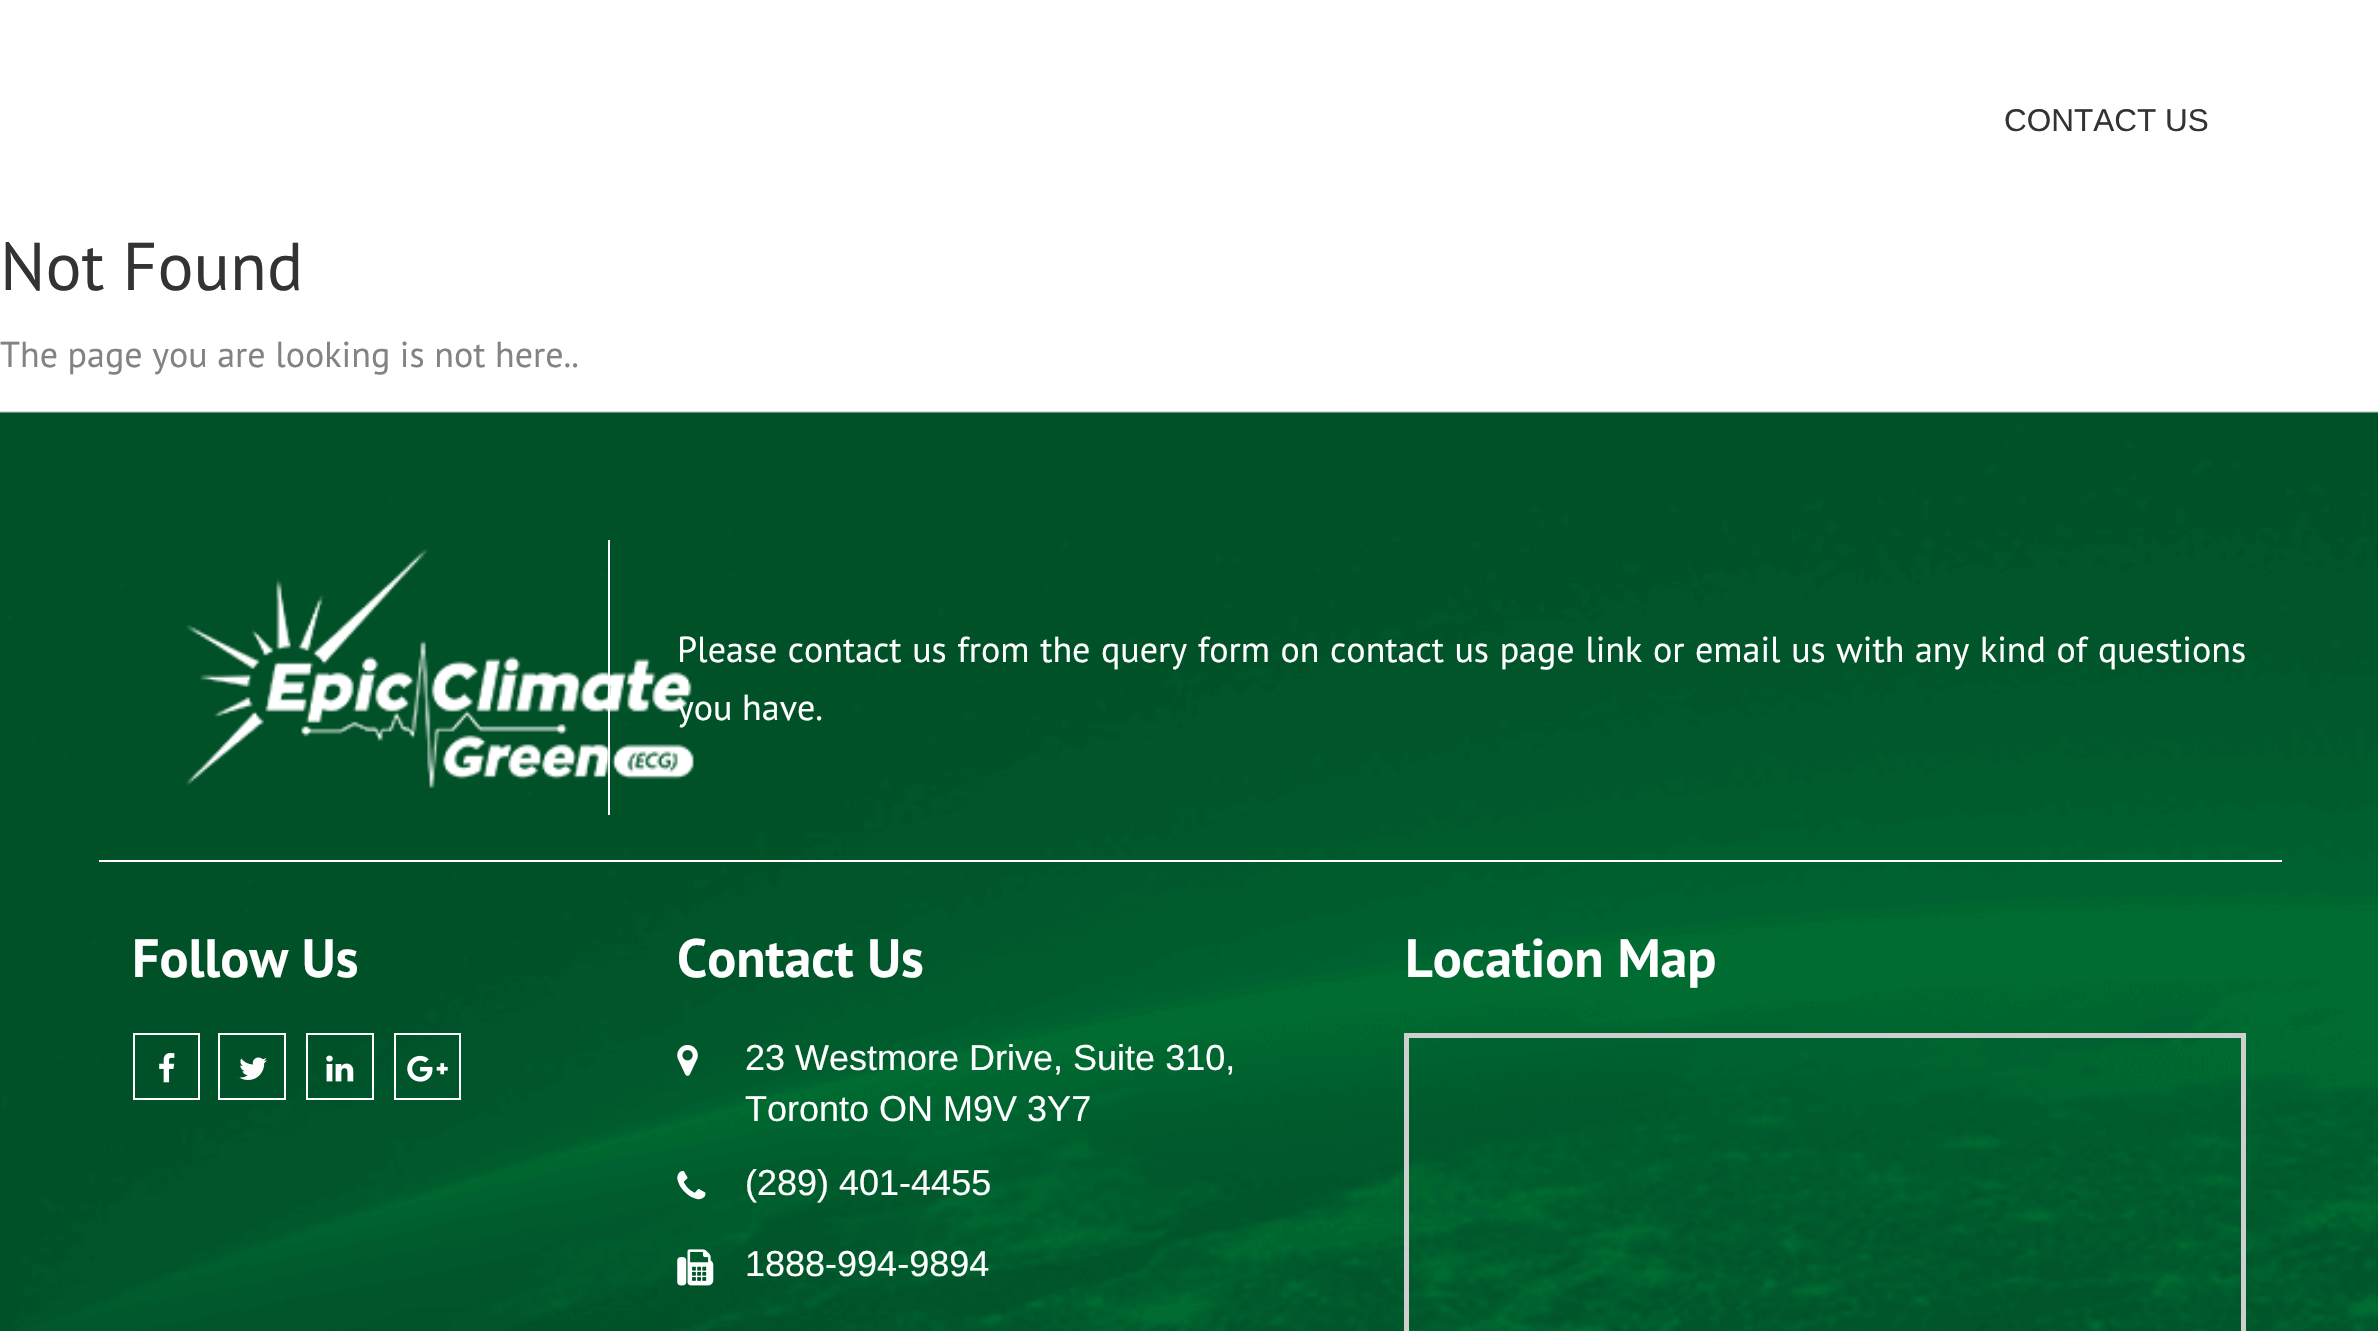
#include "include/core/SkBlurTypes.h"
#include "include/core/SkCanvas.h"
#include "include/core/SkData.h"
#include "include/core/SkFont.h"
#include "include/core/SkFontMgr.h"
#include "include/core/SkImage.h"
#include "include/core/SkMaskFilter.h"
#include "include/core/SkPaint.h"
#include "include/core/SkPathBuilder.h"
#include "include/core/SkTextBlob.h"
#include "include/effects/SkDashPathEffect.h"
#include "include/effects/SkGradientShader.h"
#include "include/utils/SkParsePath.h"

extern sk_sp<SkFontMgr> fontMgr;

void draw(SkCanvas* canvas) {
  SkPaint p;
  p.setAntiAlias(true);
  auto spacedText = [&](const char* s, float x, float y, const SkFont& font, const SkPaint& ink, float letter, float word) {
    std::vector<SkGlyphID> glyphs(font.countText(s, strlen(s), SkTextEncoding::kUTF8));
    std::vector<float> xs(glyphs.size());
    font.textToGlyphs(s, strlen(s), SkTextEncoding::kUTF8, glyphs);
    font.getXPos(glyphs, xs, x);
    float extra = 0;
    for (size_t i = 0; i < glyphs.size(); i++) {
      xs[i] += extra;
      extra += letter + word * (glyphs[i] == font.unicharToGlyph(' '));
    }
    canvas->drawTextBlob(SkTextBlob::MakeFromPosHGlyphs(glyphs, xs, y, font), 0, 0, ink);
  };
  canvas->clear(SK_ColorWHITE);
  canvas->drawImageRect(SkImages::DeferredFromEncodedData(SkData::MakeFromFileName("images/1.png")), SkRect::MakeLTRB(0, 411, 2378, 1331), SkSamplingOptions());
  p.setColor(SK_ColorWHITE);
  canvas->drawRect(SkRect::MakeLTRB(99, 860, 2282, 862), p);
  canvas->drawRect(SkRect::MakeLTRB(608, 540, 610, 815), p);
  canvas->drawImageRect(SkImages::DeferredFromEncodedData(SkData::MakeFromFileName("images/2.png")), SkRect::MakeLTRB(186, 549, 694, 789), SkSamplingOptions());
  p.setStyle(SkPaint::kStroke_Style);
  p.setStrokeWidth(2);
  canvas->drawRect(SkRect::MakeLTRB(134, 1034, 199, 1099), p);
  canvas->drawImageRect(SkImages::DeferredFromEncodedData(SkData::MakeFromFileName("images/3.png")), SkRect::MakeLTRB(159, 1053, 175, 1083), SkSamplingOptions());
  canvas->drawRect(SkRect::MakeLTRB(219, 1034, 285, 1099), p);
  canvas->drawImageRect(SkImages::DeferredFromEncodedData(SkData::MakeFromFileName("images/4.png")), SkRect::MakeLTRB(239, 1057, 267, 1080), SkSamplingOptions());
  canvas->drawRect(SkRect::MakeLTRB(307, 1034, 373, 1099), p);
  canvas->drawImageRect(SkImages::DeferredFromEncodedData(SkData::MakeFromFileName("images/5.png")), SkRect::MakeLTRB(326, 1055, 354, 1082), SkSamplingOptions());
  canvas->drawRect(SkRect::MakeLTRB(395, 1034, 460, 1099), p);
  canvas->drawImageRect(SkImages::DeferredFromEncodedData(SkData::MakeFromFileName("images/6.png")), SkRect::MakeLTRB(407, 1055, 448, 1082), SkSamplingOptions());
  canvas->drawImageRect(SkImages::DeferredFromEncodedData(SkData::MakeFromFileName("images/7.png")), SkRect::MakeLTRB(677, 1045, 698, 1076), SkSamplingOptions());
  canvas->drawImageRect(SkImages::DeferredFromEncodedData(SkData::MakeFromFileName("images/8.png")), SkRect::MakeLTRB(677, 1171, 706, 1200), SkSamplingOptions());
  canvas->drawImageRect(SkImages::DeferredFromEncodedData(SkData::MakeFromFileName("images/9.png")), SkRect::MakeLTRB(677, 1249, 714, 1286), SkSamplingOptions());
  p.setStrokeWidth(5);
  p.setColor(SkColorSetRGB(207, 207, 207));
  canvas->drawRect(SkRect::MakeLTRB(1406.5f, 1035.5f, 2243.5f, 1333.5f), p);
  SkFont font1(fontMgr->matchFamilyStyle("Liberation Sans", SkFontStyle::Normal()), 31.5f);
  font1.setSubpixel(true);
  p.setStyle(SkPaint::kFill_Style);
  p.setColor(SkColorSetRGB(51, 51, 51));
  canvas->drawString("CONTACT US", 2004, 131, font1, p);
  SkFont font2(fontMgr->matchFamilyStyle("PT Sans", SkFontStyle::Normal()), 67.5f);
  font2.setSubpixel(true);
  canvas->drawString("Not Found", 0, 290, font2, p);
  SkFont font3(fontMgr->matchFamilyStyle("PT Sans", SkFontStyle::Normal()), 36);
  font3.setSubpixel(true);
  p.setColor(SkColorSetRGB(131, 131, 131));
  canvas->drawString("The page you are looking is not here..", 0, 367, font3, p);
  p.setColor(SK_ColorWHITE);
  spacedText("Please contact us from the query form on contact us page link or email us with any kind of questions", 677, 662, font3, p, 0, 1);
  canvas->drawString("you have.", 677, 720, font3, p);
  SkFont font4(fontMgr->matchFamilyStyle("PT Sans", SkFontStyle::Bold()), 54);
  font4.setSubpixel(true);
  canvas->drawString("Follow Us", 132, 977, font4, p);
  canvas->drawString("Contact Us", 677, 977, font4, p);
  SkFont font5(fontMgr->matchFamilyStyle("Liberation Sans", SkFontStyle::Normal()), 36);
  font5.setSubpixel(true);
  canvas->drawString("23 Westmore Drive, Suite 310,", 745, 1070, font5, p);
  canvas->drawString("Toronto ON M9V 3Y7", 745, 1121, font5, p);
  canvas->drawString("(289) 401-4455", 745, 1195, font5, p);
  canvas->drawString("1888-994-9894", 745, 1276, font5, p);
  canvas->drawString("Location Map", 1405, 977, font4, p);
}
